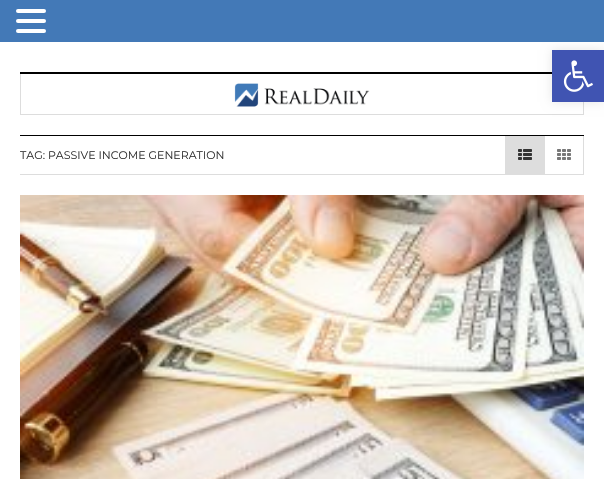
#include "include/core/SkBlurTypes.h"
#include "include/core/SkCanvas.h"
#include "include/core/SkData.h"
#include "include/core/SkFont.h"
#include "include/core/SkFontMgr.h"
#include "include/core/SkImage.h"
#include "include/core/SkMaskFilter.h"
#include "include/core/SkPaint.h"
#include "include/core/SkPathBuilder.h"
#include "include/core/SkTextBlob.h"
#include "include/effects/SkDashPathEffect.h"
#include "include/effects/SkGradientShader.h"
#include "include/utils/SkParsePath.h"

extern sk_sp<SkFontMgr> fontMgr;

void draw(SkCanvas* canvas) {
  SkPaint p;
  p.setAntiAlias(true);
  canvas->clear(SK_ColorWHITE);
  p.setColor(SK_ColorBLACK);
  canvas->drawRect(SkRect::MakeLTRB(20, 72, 552, 74), p);
  p.setColor(SkColorSetRGB(221, 221, 221));
  canvas->drawRect(SkRect::MakeLTRB(583, 102, 584, 115), p);
  canvas->drawRect(SkRect::MakeLTRB(20, 114, 584, 115), p);
  p.setColor(SkColorSetARGB(26, 0, 0, 0));
  p.setMaskFilter(SkMaskFilter::MakeBlur(kNormal_SkBlurStyle, 5));
  canvas->drawRect(SkRect::MakeLTRB(552, 50, 604, 102), p);
  p.setMaskFilter(nullptr);
  p.setColor(SkColorSetRGB(67, 121, 183));
  canvas->drawRect(SkRect::MakeLTRB(0, 0, 604, 42), p);
  p.setColor(SK_ColorWHITE);
  canvas->drawRoundRect(SkRect::MakeLTRB(16, 9, 46, 13), 2, 2, p);
  canvas->drawRoundRect(SkRect::MakeLTRB(16, 19, 46, 23), 2, 2, p);
  canvas->drawRoundRect(SkRect::MakeLTRB(16, 29, 46, 33), 2, 2, p);
  p.setColor(SkColorSetRGB(64, 84, 178));
  canvas->drawRect(SkRect::MakeLTRB(552, 50, 604, 102), p);
  canvas->drawImageRect(SkImages::DeferredFromEncodedData(SkData::MakeFromFileName("images/1.png")), SkRect::MakeLTRB(563, 60, 593, 92), SkSamplingOptions());
  p.setColor(SkColorSetRGB(221, 221, 221));
  canvas->drawRect(SkRect::MakeLTRB(20, 74, 21, 115), p);
  canvas->drawImageRect(SkImages::DeferredFromEncodedData(SkData::MakeFromFileName("images/2.png")), SkRect::MakeLTRB(234, 83, 370, 107), SkSamplingOptions());
  p.setColor(SK_ColorBLACK);
  canvas->drawRect(SkRect::MakeLTRB(20, 135, 584, 136), p);
  p.setColor(SkColorSetRGB(221, 221, 221));
  canvas->drawRect(SkRect::MakeLTRB(20, 174, 584, 175), p);
  canvas->drawRect(SkRect::MakeLTRB(505, 136, 506, 175), p);
  canvas->drawRect(SkRect::MakeLTRB(506, 136, 545, 174), p);
  canvas->drawImageRect(SkImages::DeferredFromEncodedData(SkData::MakeFromFileName("images/3.png")), SkRect::MakeLTRB(518, 149, 532, 160), SkSamplingOptions());
  canvas->drawRect(SkRect::MakeLTRB(583, 136, 584, 175), p);
  canvas->drawImageRect(SkImages::DeferredFromEncodedData(SkData::MakeFromFileName("images/4.png")), SkRect::MakeLTRB(557, 149, 571, 160), SkSamplingOptions());
  canvas->drawImageRect(SkImages::DeferredFromEncodedData(SkData::MakeFromFileName("images/5.png")), SkRect::MakeLTRB(20, 195, 584, 479), SkSamplingOptions());
  SkFont font1(fontMgr->matchFamilyStyle("Montserrat", SkFontStyle(100, SkFontStyle::kNormal_Width, SkFontStyle::kUpright_Slant)), 11);
  font1.setSubpixel(true);
  p.setColor(SkColorSetRGB(51, 51, 51));
  canvas->drawString("TAG: PASSIVE INCOME GENERATION", 20, 159, font1, p);
}
